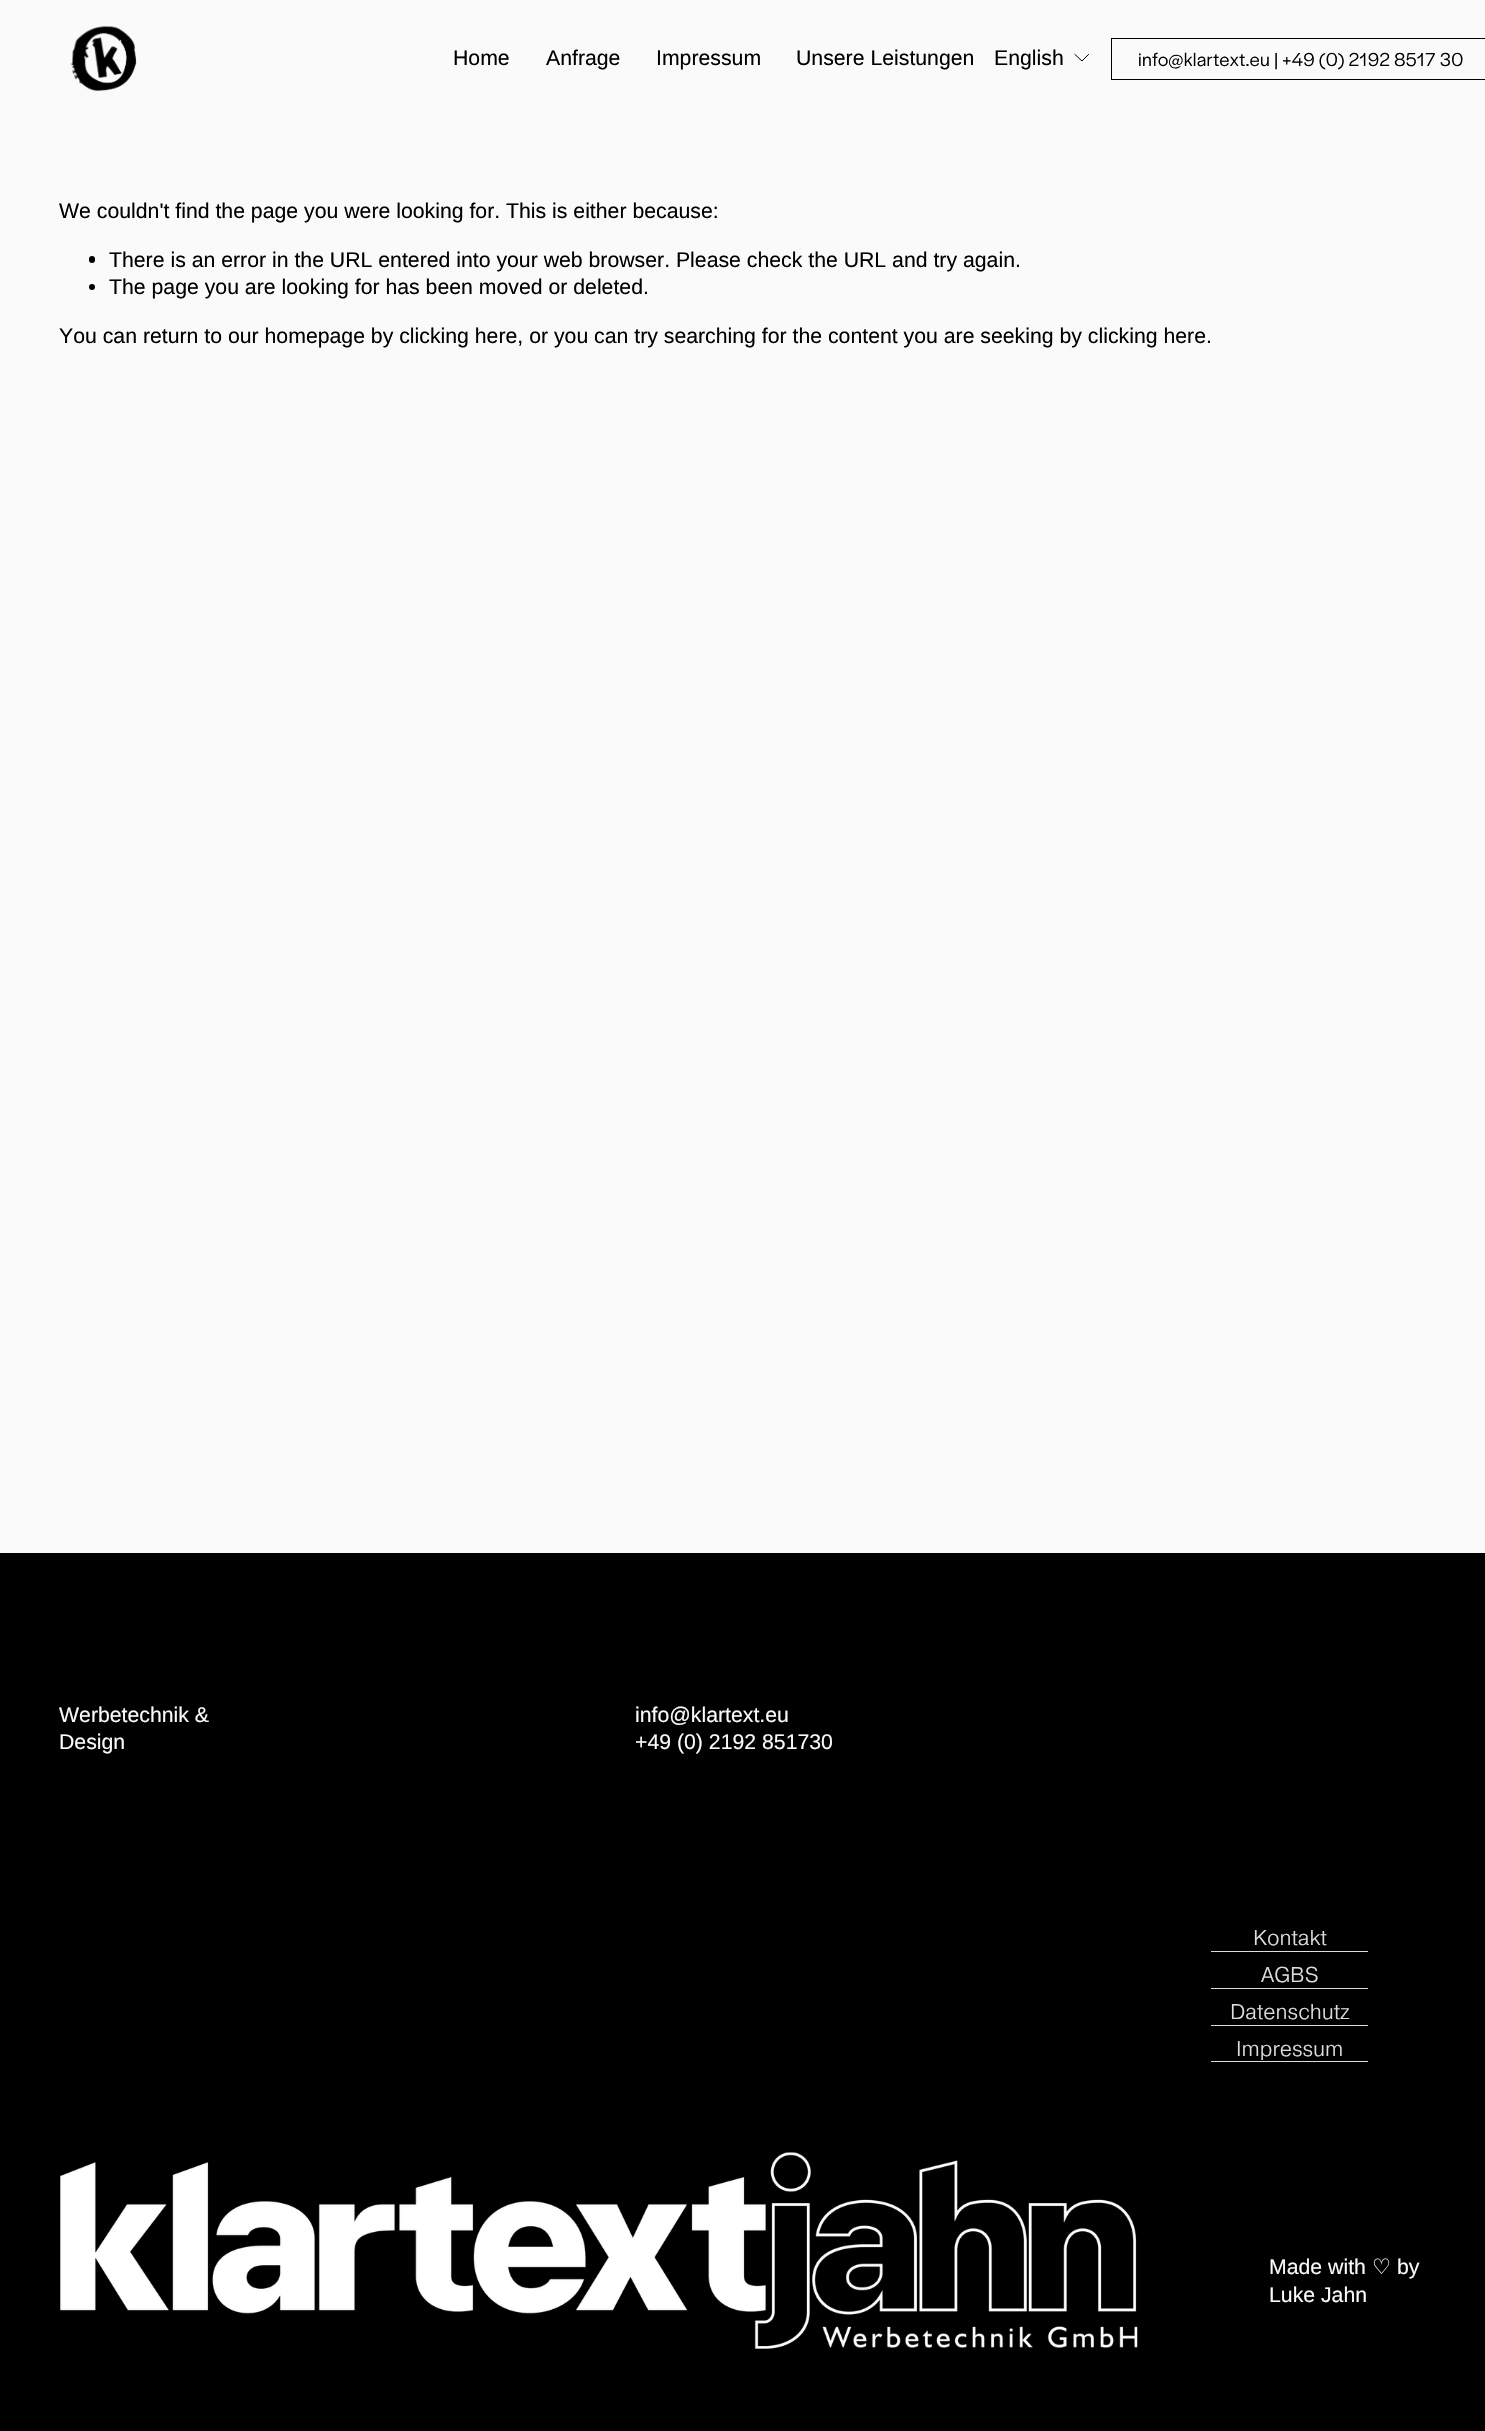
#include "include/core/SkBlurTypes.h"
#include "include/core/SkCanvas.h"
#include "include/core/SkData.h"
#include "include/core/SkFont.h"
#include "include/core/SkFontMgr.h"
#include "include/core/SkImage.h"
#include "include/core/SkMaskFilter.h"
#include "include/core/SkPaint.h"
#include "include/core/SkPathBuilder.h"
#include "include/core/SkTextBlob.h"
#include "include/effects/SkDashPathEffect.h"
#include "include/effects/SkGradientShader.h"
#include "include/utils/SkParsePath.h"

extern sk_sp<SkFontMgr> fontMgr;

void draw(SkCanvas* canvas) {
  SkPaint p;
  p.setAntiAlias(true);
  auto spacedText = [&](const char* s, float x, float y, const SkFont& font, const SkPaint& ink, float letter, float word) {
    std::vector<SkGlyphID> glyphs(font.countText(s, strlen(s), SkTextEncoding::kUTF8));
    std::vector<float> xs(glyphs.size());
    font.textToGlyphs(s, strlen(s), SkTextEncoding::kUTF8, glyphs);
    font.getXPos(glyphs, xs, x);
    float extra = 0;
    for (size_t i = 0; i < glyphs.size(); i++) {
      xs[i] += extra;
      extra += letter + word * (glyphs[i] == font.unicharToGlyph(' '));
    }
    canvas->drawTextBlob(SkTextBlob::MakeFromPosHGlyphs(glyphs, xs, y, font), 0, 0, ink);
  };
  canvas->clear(SkColorSetRGB(250, 250, 250));
  canvas->drawImageRect(SkImages::DeferredFromEncodedData(SkData::MakeFromFileName("images/1.png")), SkRect::MakeLTRB(70, 26, 137, 91), SkSamplingOptions());
  p.setStyle(SkPaint::kStroke_Style);
  p.setStrokeWidth(1);
  p.setStrokeCap(SkPaint::kSquare_Cap);
  p.setColor(SK_ColorBLACK);
  canvas->drawPath(SkPathBuilder().moveTo(1088.5f, 54.5f).lineTo(1082, 61).lineTo(1075, 54.5f).detach(), p);
  p.setStrokeCap(SkPaint::kButt_Cap);
  canvas->drawRect(SkRect::MakeLTRB(1111.5f, 38.5f, 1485.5f, 79.5f), p);
  p.setStyle(SkPaint::kFill_Style);
  canvas->drawRoundRect(SkRect::MakeLTRB(89, 256, 95, 263), 3, 3, p);
  canvas->drawCircle(92, 287, 3, p);
  canvas->drawRect(SkRect::MakeLTRB(0, 1553, 1485, 2431), p);
  p.setColor(SkColorSetRGB(220, 220, 220));
  canvas->drawRect(SkRect::MakeLTRB(1211, 1951, 1368, 1952), p);
  canvas->drawRect(SkRect::MakeLTRB(1211, 1988, 1368, 1989), p);
  canvas->drawRect(SkRect::MakeLTRB(1211, 2025, 1368, 2026), p);
  canvas->drawRect(SkRect::MakeLTRB(1211, 2061, 1368, 2062), p);
  canvas->drawImageRect(SkImages::DeferredFromEncodedData(SkData::MakeFromFileName("images/2.png")), SkRect::MakeLTRB(60, 2152, 1138, 2349), SkSamplingOptions());
  SkFont font1(fontMgr->matchFamilyStyle("Liberation Sans", SkFontStyle::Normal()), 21.25f);
  font1.setSubpixel(true);
  p.setColor(SK_ColorBLACK);
  canvas->drawString("Home", 453, 65, font1, p);
  canvas->drawString("Anfrage", 546, 65, font1, p);
  canvas->drawString("Impressum", 656, 65, font1, p);
  canvas->drawString("Unsere Leistungen", 796, 65, font1, p);
  canvas->drawString("English", 994, 65, font1, p);
  SkFont font2(fontMgr->matchFamilyStyle("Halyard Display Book", SkFontStyle::Normal()), 19.5f);
  font2.setSubpixel(true);
  spacedText("info@klartext.eu | +49 (0) 2192 8517 30", 1138, 66, font2, p, 0.4f, 0);
  canvas->drawString("We couldn't find the page you were looking for. This is either because:", 59, 218, font1, p);
  canvas->drawString("There is an error in the URL entered into your web browser. Please check the URL and try again.", 109, 267, font1, p);
  canvas->drawString("The page you are looking for has been moved or deleted.", 109, 294, font1, p);
  canvas->drawString("You can return to our homepage by clicking here, or you can try searching for the content you are seeking by clicking here.", 59, 343, font1, p);
  p.setColor(SkColorSetRGB(250, 250, 250));
  canvas->drawString("Werbetechnik &", 59, 1722, font1, p);
  canvas->drawString("Design", 59, 1749, font1, p);
  canvas->drawString("info@klartext.eu", 635, 1722, font1, p);
  canvas->drawString("+49 (0) 2192 851730", 635, 1749, font1, p);
  SkFont font3(fontMgr->matchFamilyStyle("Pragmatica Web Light", SkFontStyle(300, SkFontStyle::kNormal_Width, SkFontStyle::kUpright_Slant)), 21.25f);
  font3.setSubpixel(true);
  p.setColor(SkColorSetRGB(220, 220, 220));
  canvas->drawString("Kontakt", 1253, 1945, font3, p);
  canvas->drawString("AGBS", 1261, 1982, font3, p);
  canvas->drawString("Datenschutz", 1230, 2019, font3, p);
  canvas->drawString("Impressum", 1236, 2056, font3, p);
  p.setColor(SkColorSetRGB(250, 250, 250));
  canvas->drawString("Made with", 1269, 2274, font1, p);
  SkFont font4(fontMgr->matchFamilyStyle("DejaVu Sans", SkFontStyle::Normal()), 21.25f);
  font4.setSubpixel(true);
  canvas->drawString("♡", 1372, 2274, font4, p);
  canvas->drawString("by", 1397, 2274, font1, p);
  canvas->drawString("Luke Jahn", 1269, 2302, font1, p);
}
